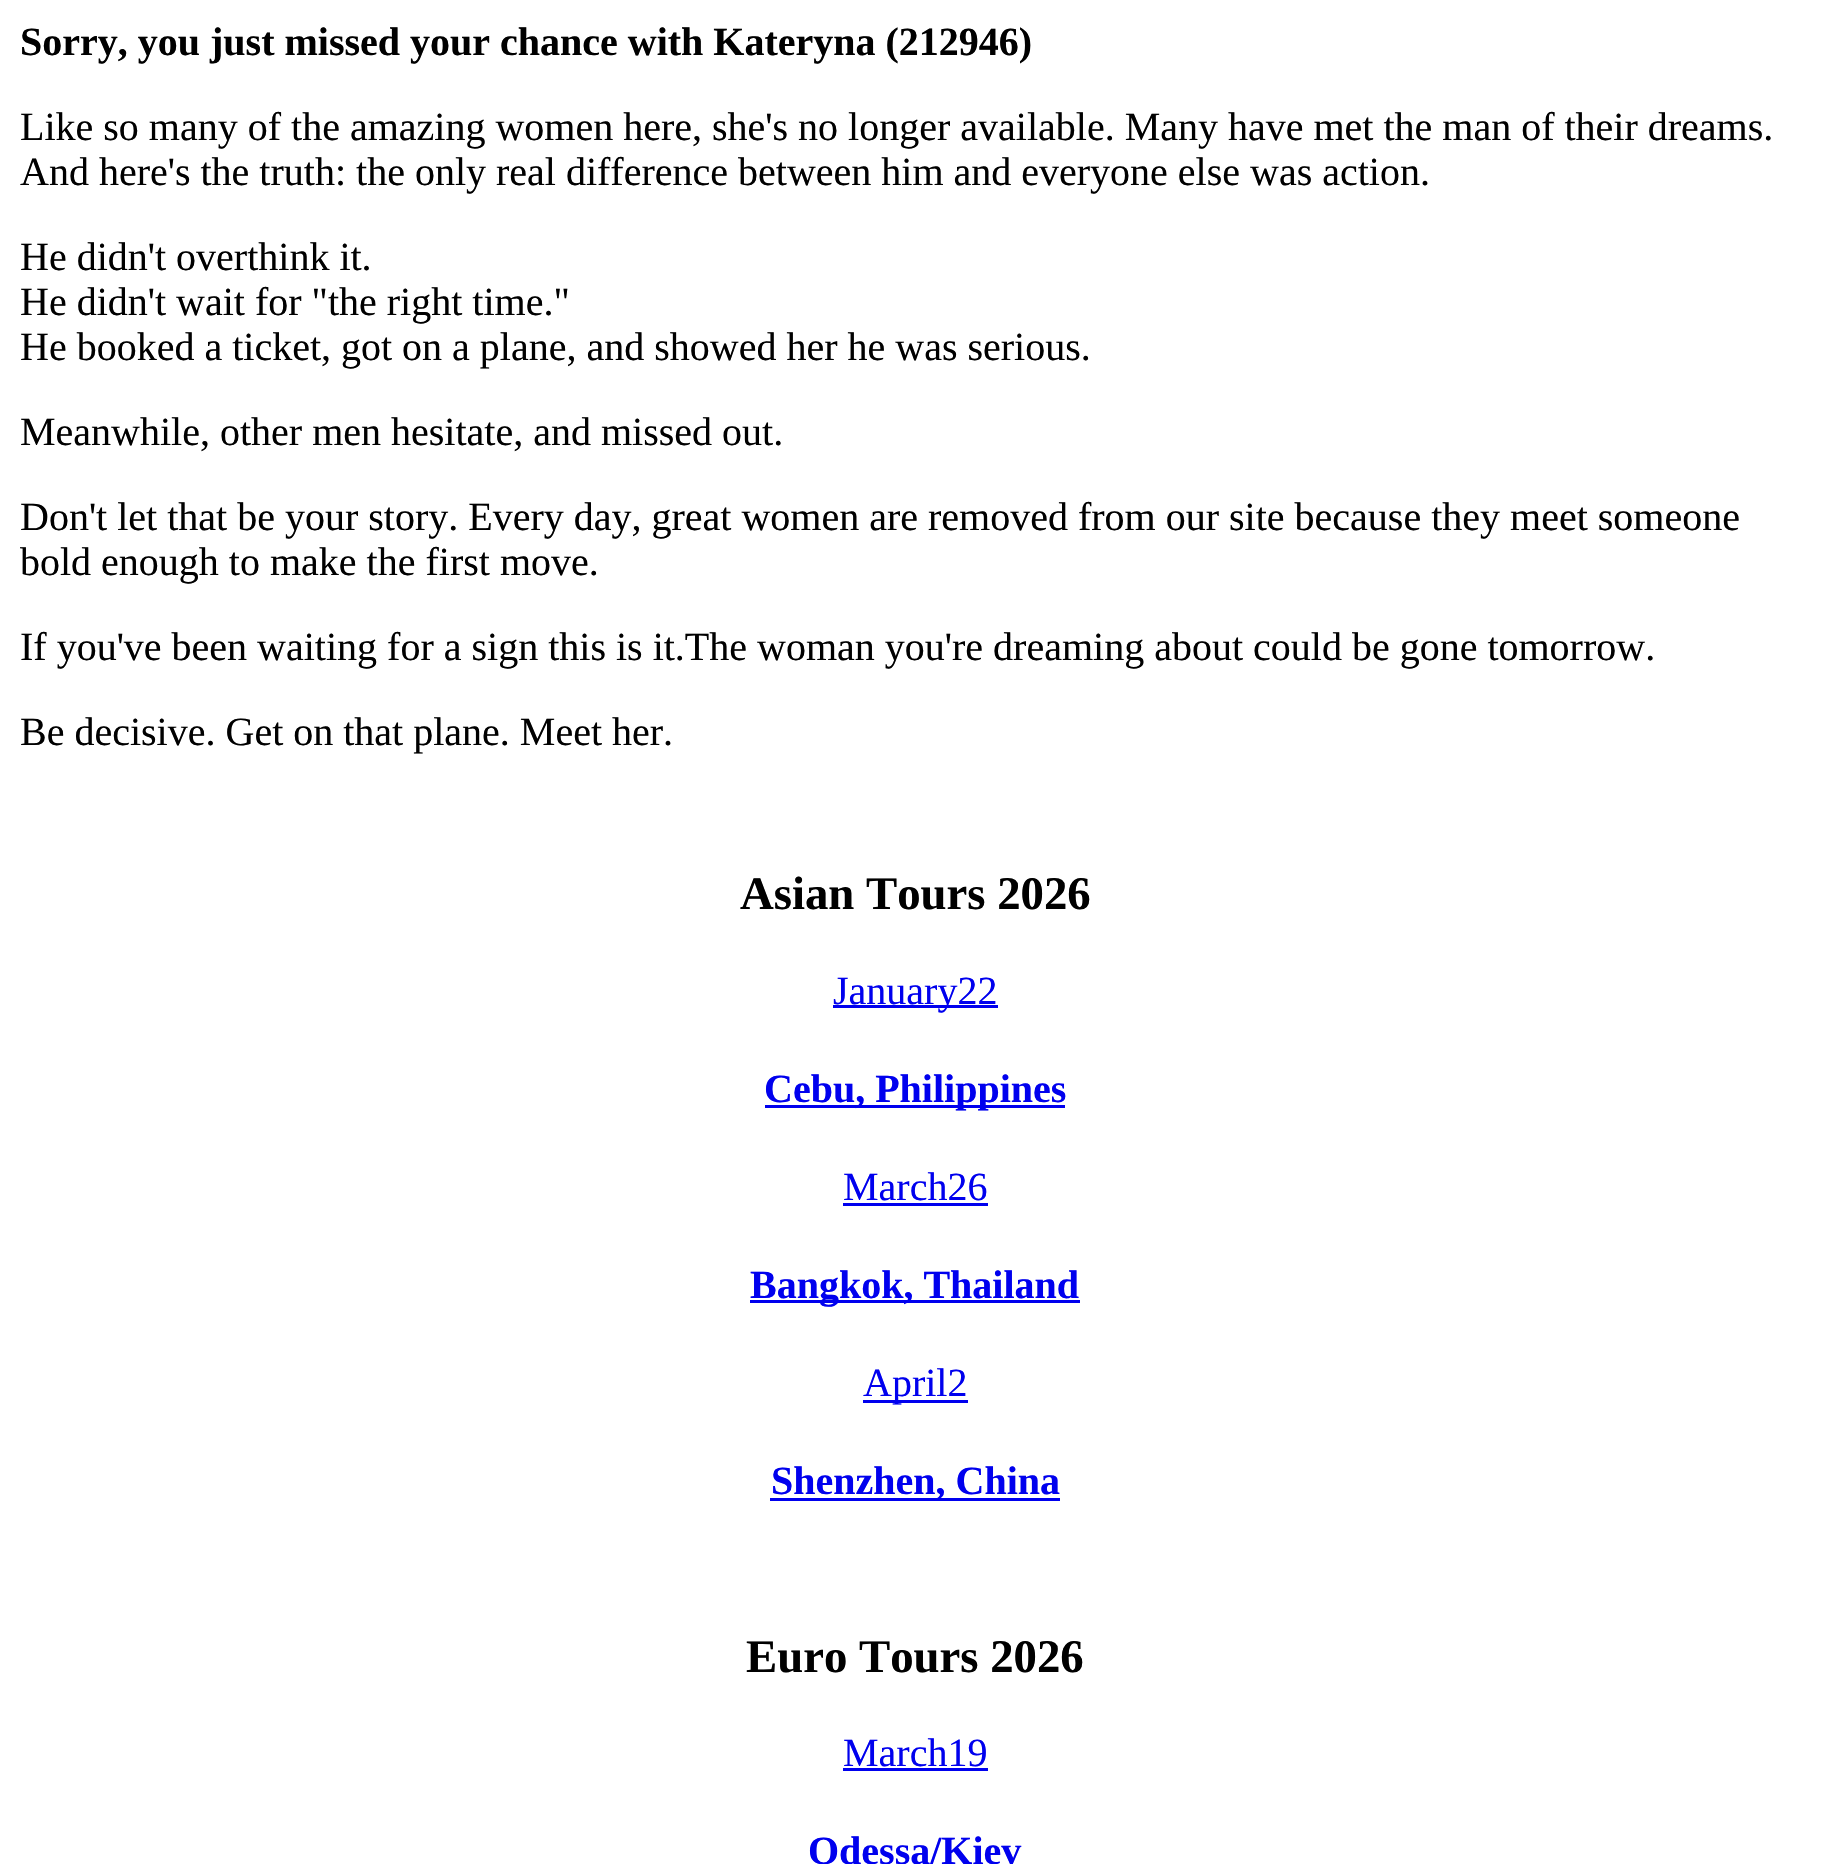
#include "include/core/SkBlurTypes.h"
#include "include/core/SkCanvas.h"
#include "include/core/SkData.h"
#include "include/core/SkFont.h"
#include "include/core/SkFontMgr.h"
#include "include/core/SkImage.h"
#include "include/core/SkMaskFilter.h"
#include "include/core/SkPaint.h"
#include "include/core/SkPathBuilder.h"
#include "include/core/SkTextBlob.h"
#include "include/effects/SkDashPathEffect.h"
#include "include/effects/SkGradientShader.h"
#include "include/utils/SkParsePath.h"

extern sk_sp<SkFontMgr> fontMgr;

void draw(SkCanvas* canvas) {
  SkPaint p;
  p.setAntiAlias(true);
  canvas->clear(SK_ColorWHITE);
  p.setColor(SkColorSetRGB(0, 0, 238));
  canvas->drawRect(SkRect::MakeLTRB(833, 1005, 998, 1008), p);
  canvas->drawRect(SkRect::MakeLTRB(765, 1105, 1065, 1108), p);
  canvas->drawRect(SkRect::MakeLTRB(843, 1203, 988, 1206), p);
  canvas->drawRect(SkRect::MakeLTRB(750, 1300, 1080, 1303), p);
  canvas->drawRect(SkRect::MakeLTRB(863, 1400, 968, 1403), p);
  canvas->drawRect(SkRect::MakeLTRB(770, 1498, 1060, 1501), p);
  canvas->drawRect(SkRect::MakeLTRB(843, 1768, 988, 1771), p);
  SkFont font1(fontMgr->matchFamilyStyle("Liberation Serif", SkFontStyle::Bold()), 40);
  font1.setSubpixel(true);
  p.setColor(SK_ColorBLACK);
  canvas->drawString("Sorry, you just missed your chance with Kateryna (212946)", 20, 55, font1, p);
  SkFont font2(fontMgr->matchFamilyStyle("Liberation Serif", SkFontStyle::Normal()), 40);
  font2.setSubpixel(true);
  canvas->drawString("Like so many of the amazing women here, she's no longer available. Many have met the man of their dreams.", 20, 140, font2, p);
  canvas->drawString("And here's the truth: the only real difference between him and everyone else was action.", 20, 185, font2, p);
  canvas->drawString("He didn't overthink it.", 20, 270, font2, p);
  canvas->drawString("He didn't wait for \"the right time.\"", 20, 315, font2, p);
  canvas->drawString("He booked a ticket, got on a plane, and showed her he was serious.", 20, 360, font2, p);
  canvas->drawString("Meanwhile, other men hesitate, and missed out.", 20, 445, font2, p);
  canvas->drawString("Don't let that be your story. Every day, great women are removed from our site because they meet someone", 20, 530, font2, p);
  canvas->drawString("bold enough to make the first move.", 20, 575, font2, p);
  canvas->drawString("If you've been waiting for a sign this is it.The woman you're dreaming about could be gone tomorrow.", 20, 660, font2, p);
  canvas->drawString("Be decisive. Get on that plane. Meet her.", 20, 745, font2, p);
  SkFont font3(fontMgr->matchFamilyStyle("Liberation Serif", SkFontStyle::Bold()), 46.75f);
  font3.setSubpixel(true);
  canvas->drawString("Asian Tours 2026", 740, 909, font3, p);
  p.setColor(SkColorSetRGB(0, 0, 238));
  canvas->drawString("January22", 833, 1004, font2, p);
  canvas->drawString("Cebu, Philippines", 764, 1102, font1, p);
  canvas->drawString("March26", 843, 1200, font2, p);
  canvas->drawString("Bangkok, Thailand", 750, 1298, font1, p);
  canvas->drawString("April2", 863, 1396, font2, p);
  canvas->drawString("Shenzhen, China", 771, 1494, font1, p);
  p.setColor(SK_ColorBLACK);
  canvas->drawString("Euro Tours 2026", 746, 1672, font3, p);
  p.setColor(SkColorSetRGB(0, 0, 238));
  canvas->drawString("March19", 843, 1766, font2, p);
  canvas->drawString("Odessa/Kiev", 808, 1864, font1, p);
}
